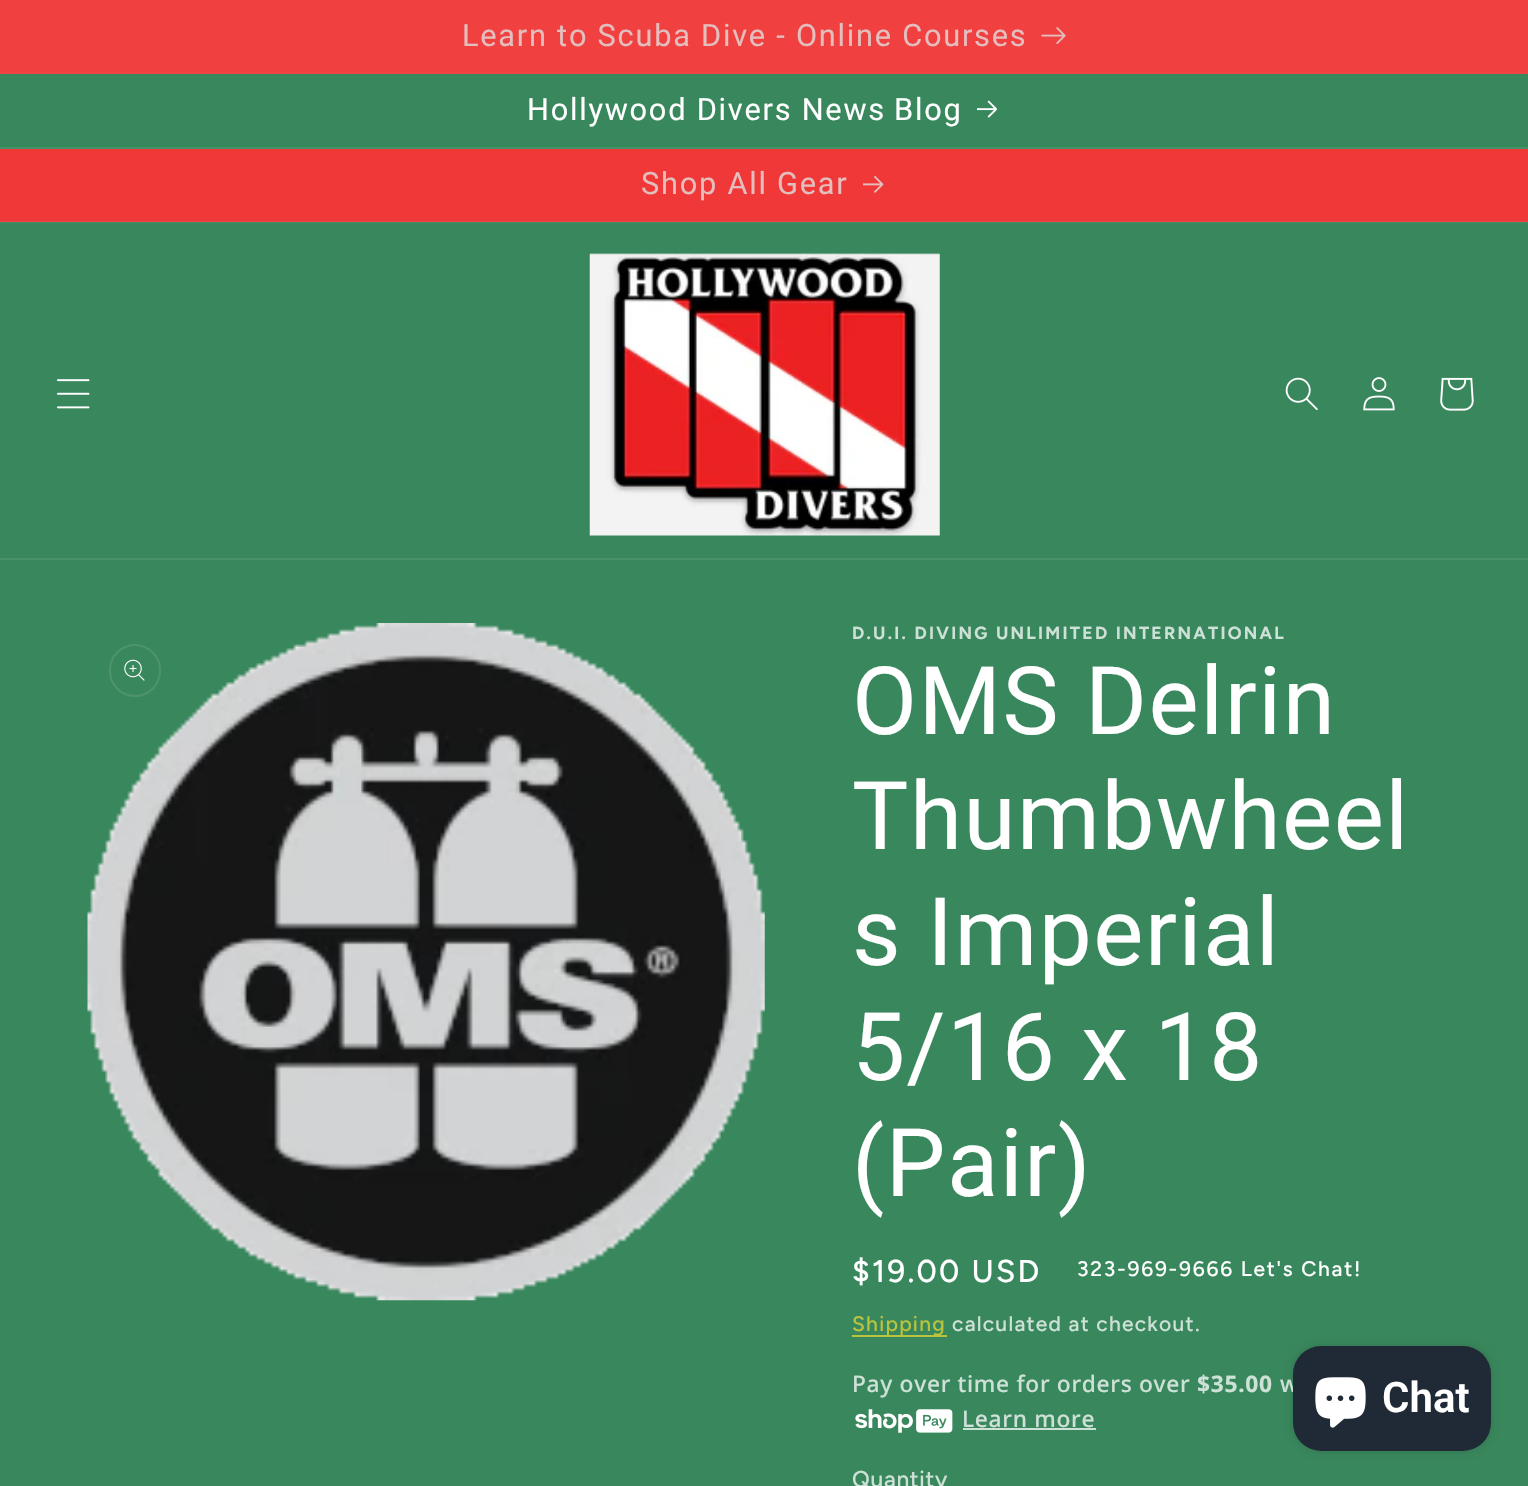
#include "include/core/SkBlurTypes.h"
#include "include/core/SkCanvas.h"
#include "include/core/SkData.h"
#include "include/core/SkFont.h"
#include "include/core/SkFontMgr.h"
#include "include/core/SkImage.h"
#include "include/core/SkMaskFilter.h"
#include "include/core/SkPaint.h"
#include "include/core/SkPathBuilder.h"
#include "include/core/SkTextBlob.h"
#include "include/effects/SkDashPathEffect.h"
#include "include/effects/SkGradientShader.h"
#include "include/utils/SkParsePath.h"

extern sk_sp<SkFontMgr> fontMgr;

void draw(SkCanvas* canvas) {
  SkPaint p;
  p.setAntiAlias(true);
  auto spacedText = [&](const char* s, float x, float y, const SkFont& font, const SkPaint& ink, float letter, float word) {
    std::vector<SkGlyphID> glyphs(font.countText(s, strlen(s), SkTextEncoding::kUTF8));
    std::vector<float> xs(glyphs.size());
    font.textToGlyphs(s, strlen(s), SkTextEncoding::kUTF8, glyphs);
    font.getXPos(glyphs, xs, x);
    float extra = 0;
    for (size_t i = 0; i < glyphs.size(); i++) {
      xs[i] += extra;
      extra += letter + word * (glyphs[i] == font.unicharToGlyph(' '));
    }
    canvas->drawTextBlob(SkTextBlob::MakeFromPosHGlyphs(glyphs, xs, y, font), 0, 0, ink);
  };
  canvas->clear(SkColorSetRGB(57, 135, 93));
  p.setColor(SkColorSetRGB(71, 139, 101));
  canvas->drawRect(SkRect::MakeLTRB(0, 222, 1528, 223), p);
  p.setColor(SkColorSetRGB(240, 67, 67));
  canvas->drawRect(SkRect::MakeLTRB(0, 72, 1528, 74), p);
  p.setColor(SkColorSetRGB(240, 64, 64));
  canvas->drawRect(SkRect::MakeLTRB(0, 0, 1528, 72), p);
  canvas->drawImageRect(SkImages::DeferredFromEncodedData(SkData::MakeFromFileName("images/1.png")), SkRect::MakeLTRB(1041, 27, 1066, 44), SkSamplingOptions());
  p.setColor(SkColorSetRGB(73, 145, 106));
  canvas->drawRect(SkRect::MakeLTRB(0, 147, 1528, 149), p);
  canvas->drawImageRect(SkImages::DeferredFromEncodedData(SkData::MakeFromFileName("images/2.png")), SkRect::MakeLTRB(977, 100, 998, 118), SkSamplingOptions());
  p.setColor(SkColorSetRGB(241, 56, 56));
  canvas->drawRect(SkRect::MakeLTRB(0, 149, 1528, 221), p);
  p.setColor(SkColorSetRGB(240, 67, 67));
  canvas->drawRect(SkRect::MakeLTRB(0, 221, 1528, 222), p);
  canvas->drawImageRect(SkImages::DeferredFromEncodedData(SkData::MakeFromFileName("images/3.png")), SkRect::MakeLTRB(863, 176, 884, 193), SkSamplingOptions());
  p.setColor(SkColorSetRGB(73, 145, 106));
  canvas->drawRect(SkRect::MakeLTRB(0, 558, 1528, 560), p);
  canvas->drawImageRect(SkImages::DeferredFromEncodedData(SkData::MakeFromFileName("images/4.png")), SkRect::MakeLTRB(57, 379, 90, 409), SkSamplingOptions());
  canvas->drawImageRect(SkImages::DeferredFromEncodedData(SkData::MakeFromFileName("images/5.png")), SkRect::MakeLTRB(589, 253, 940, 536), SkSamplingOptions());
  canvas->drawImageRect(SkImages::DeferredFromEncodedData(SkData::MakeFromFileName("images/6.png")), SkRect::MakeLTRB(1285, 377, 1318, 411), SkSamplingOptions());
  canvas->drawImageRect(SkImages::DeferredFromEncodedData(SkData::MakeFromFileName("images/7.png")), SkRect::MakeLTRB(1363, 377, 1395, 411), SkSamplingOptions());
  canvas->drawImageRect(SkImages::DeferredFromEncodedData(SkData::MakeFromFileName("images/8.png")), SkRect::MakeLTRB(1440, 377, 1474, 411), SkSamplingOptions());
  canvas->drawImageRect(SkImages::DeferredFromEncodedData(SkData::MakeFromFileName("images/9.png")), SkRect::MakeLTRB(87, 623, 765, 1301), SkSamplingOptions());
  p.setStyle(SkPaint::kStroke_Style);
  p.setStrokeWidth(2);
  p.setColor(SkColorSetRGB(77, 147, 109));
  canvas->drawRoundRect(SkRect::MakeLTRB(110, 645, 160, 696), 25, 25, p);
  canvas->drawImageRect(SkImages::DeferredFromEncodedData(SkData::MakeFromFileName("images/10.png")), SkRect::MakeLTRB(124, 659, 145, 681), SkSamplingOptions());
  p.setStyle(SkPaint::kFill_Style);
  p.setColor(SkColorSetRGB(186, 195, 61));
  canvas->drawRect(SkRect::MakeLTRB(852, 1335, 947, 1337), p);
  canvas->drawImageRect(SkImages::DeferredFromEncodedData(SkData::MakeFromFileName("images/11.png")), SkRect::MakeLTRB(855, 1409, 953, 1433), SkSamplingOptions());
  p.setColor(SkColorSetRGB(206, 225, 215));
  canvas->drawRect(SkRect::MakeLTRB(963, 1428, 1096, 1430), p);
  p.setColor(SkColorSetARGB(38, 0, 0, 0));
  p.setMaskFilter(SkMaskFilter::MakeBlur(kNormal_SkBlurStyle, 4.5f));
  canvas->drawRoundRect(SkRect::MakeLTRB(1293, 1346, 1491, 1451), 28, 28, p);
  p.setMaskFilter(nullptr);
  SkFont font1(fontMgr->matchFamilyStyle("Roboto", SkFontStyle::Normal()), 30.75f);
  font1.setSubpixel(true);
  p.setColor(SkColorSetRGB(228, 189, 189));
  spacedText("Learn to Scuba Dive - Online Courses", 462, 46, font1, p, 1.75f, 0);
  p.setColor(SK_ColorWHITE);
  spacedText("Hollywood Divers News", 527, 120, font1, p, 1.75f, 0);
  spacedText("Blog", 894, 120, font1, p, 1.75f, 0);
  p.setColor(SkColorSetRGB(228, 189, 189));
  spacedText("Shop All Gear", 641, 194, font1, p, 1.75f, 0);
  SkFont font2(fontMgr->matchFamilyStyle("Figtree", SkFontStyle::Bold()), 17.5f);
  font2.setSubpixel(true);
  p.setColor(SkColorSetRGB(206, 225, 215));
  spacedText("D.U.I. DIVING UNLIMITED INTERNATIONAL", 852, 639, font2, p, 2.25f, 0);
  SkFont font3(fontMgr->matchFamilyStyle("Roboto", SkFontStyle::Normal()), 94.5f);
  font3.setSubpixel(true);
  p.setColor(SK_ColorWHITE);
  spacedText("OMS Delrin", 852, 734, font3, p, 1.5f, 0);
  spacedText("Thumbwheel", 852, 849, font3, p, 1.5f, 0);
  spacedText("s Imperial", 852, 965, font3, p, 1.5f, 0);
  spacedText("5/16 x 18", 852, 1080, font3, p, 1.5f, 0);
  spacedText("(Pair)", 852, 1196, font3, p, 1.5f, 0);
  SkFont font4(fontMgr->matchFamilyStyle("Figtree", SkFontStyle(500, SkFontStyle::kNormal_Width, SkFontStyle::kUpright_Slant)), 31.5f);
  font4.setSubpixel(true);
  spacedText("$19.00 USD", 852, 1282, font4, p, 2.25f, 0);
  SkFont font5(fontMgr->matchFamilyStyle("Figtree", SkFontStyle(500, SkFontStyle::kNormal_Width, SkFontStyle::kUpright_Slant)), 21);
  font5.setSubpixel(true);
  spacedText("323-969-9666 Let's Chat!", 1077, 1276, font5, p, 1.75f, 0);
  p.setColor(SkColorSetRGB(186, 195, 61));
  spacedText("Shipping", 852, 1331, font5, p, 1.25f, 0);
  p.setColor(SkColorSetRGB(206, 225, 215));
  spacedText("calculated at checkout.", 952, 1331, font5, p, 1.25f, 0);
  SkFont font6(fontMgr->matchFamilyStyle("Noto Sans", SkFontStyle(500, SkFontStyle::kNormal_Width, SkFontStyle::kUpright_Slant)), 22.75f);
  font6.setSubpixel(true);
  spacedText("Pay over time for orders over", 852, 1392, font6, p, 0.7f, 0);
  SkFont font7(fontMgr->matchFamilyStyle("Noto Sans", SkFontStyle::Bold()), 22.75f);
  font7.setSubpixel(true);
  spacedText("$35.00", 1197, 1392, font7, p, 0.7f, 0);
  spacedText("w", 1280, 1392, font6, p, 0.7f, 0);
  spacedText("Learn more", 962, 1427, font6, p, 0.7f, 0);
  SkFont font8(fontMgr->matchFamilyStyle("Figtree", SkFontStyle(500, SkFontStyle::kNormal_Width, SkFontStyle::kUpright_Slant)), 22.75f);
  font8.setSubpixel(true);
  spacedText("Quantity", 852, 1487, font8, p, 0.7f, 0);
  p.setColor(SkColorSetRGB(32, 42, 54));
  canvas->drawRoundRect(SkRect::MakeLTRB(1293, 1346, 1491, 1451), 28, 28, p);
  canvas->drawImageRect(SkImages::DeferredFromEncodedData(SkData::MakeFromFileName("images/12.png")), SkRect::MakeLTRB(1315, 1377, 1366, 1428), SkSamplingOptions());
  SkFont font9(fontMgr->matchFamilyStyle("Roboto", SkFontStyle(600, SkFontStyle::kNormal_Width, SkFontStyle::kUpright_Slant)), 42);
  font9.setSubpixel(true);
  p.setColor(SK_ColorWHITE);
  canvas->drawString("Chat", 1382, 1412, font9, p);
}
